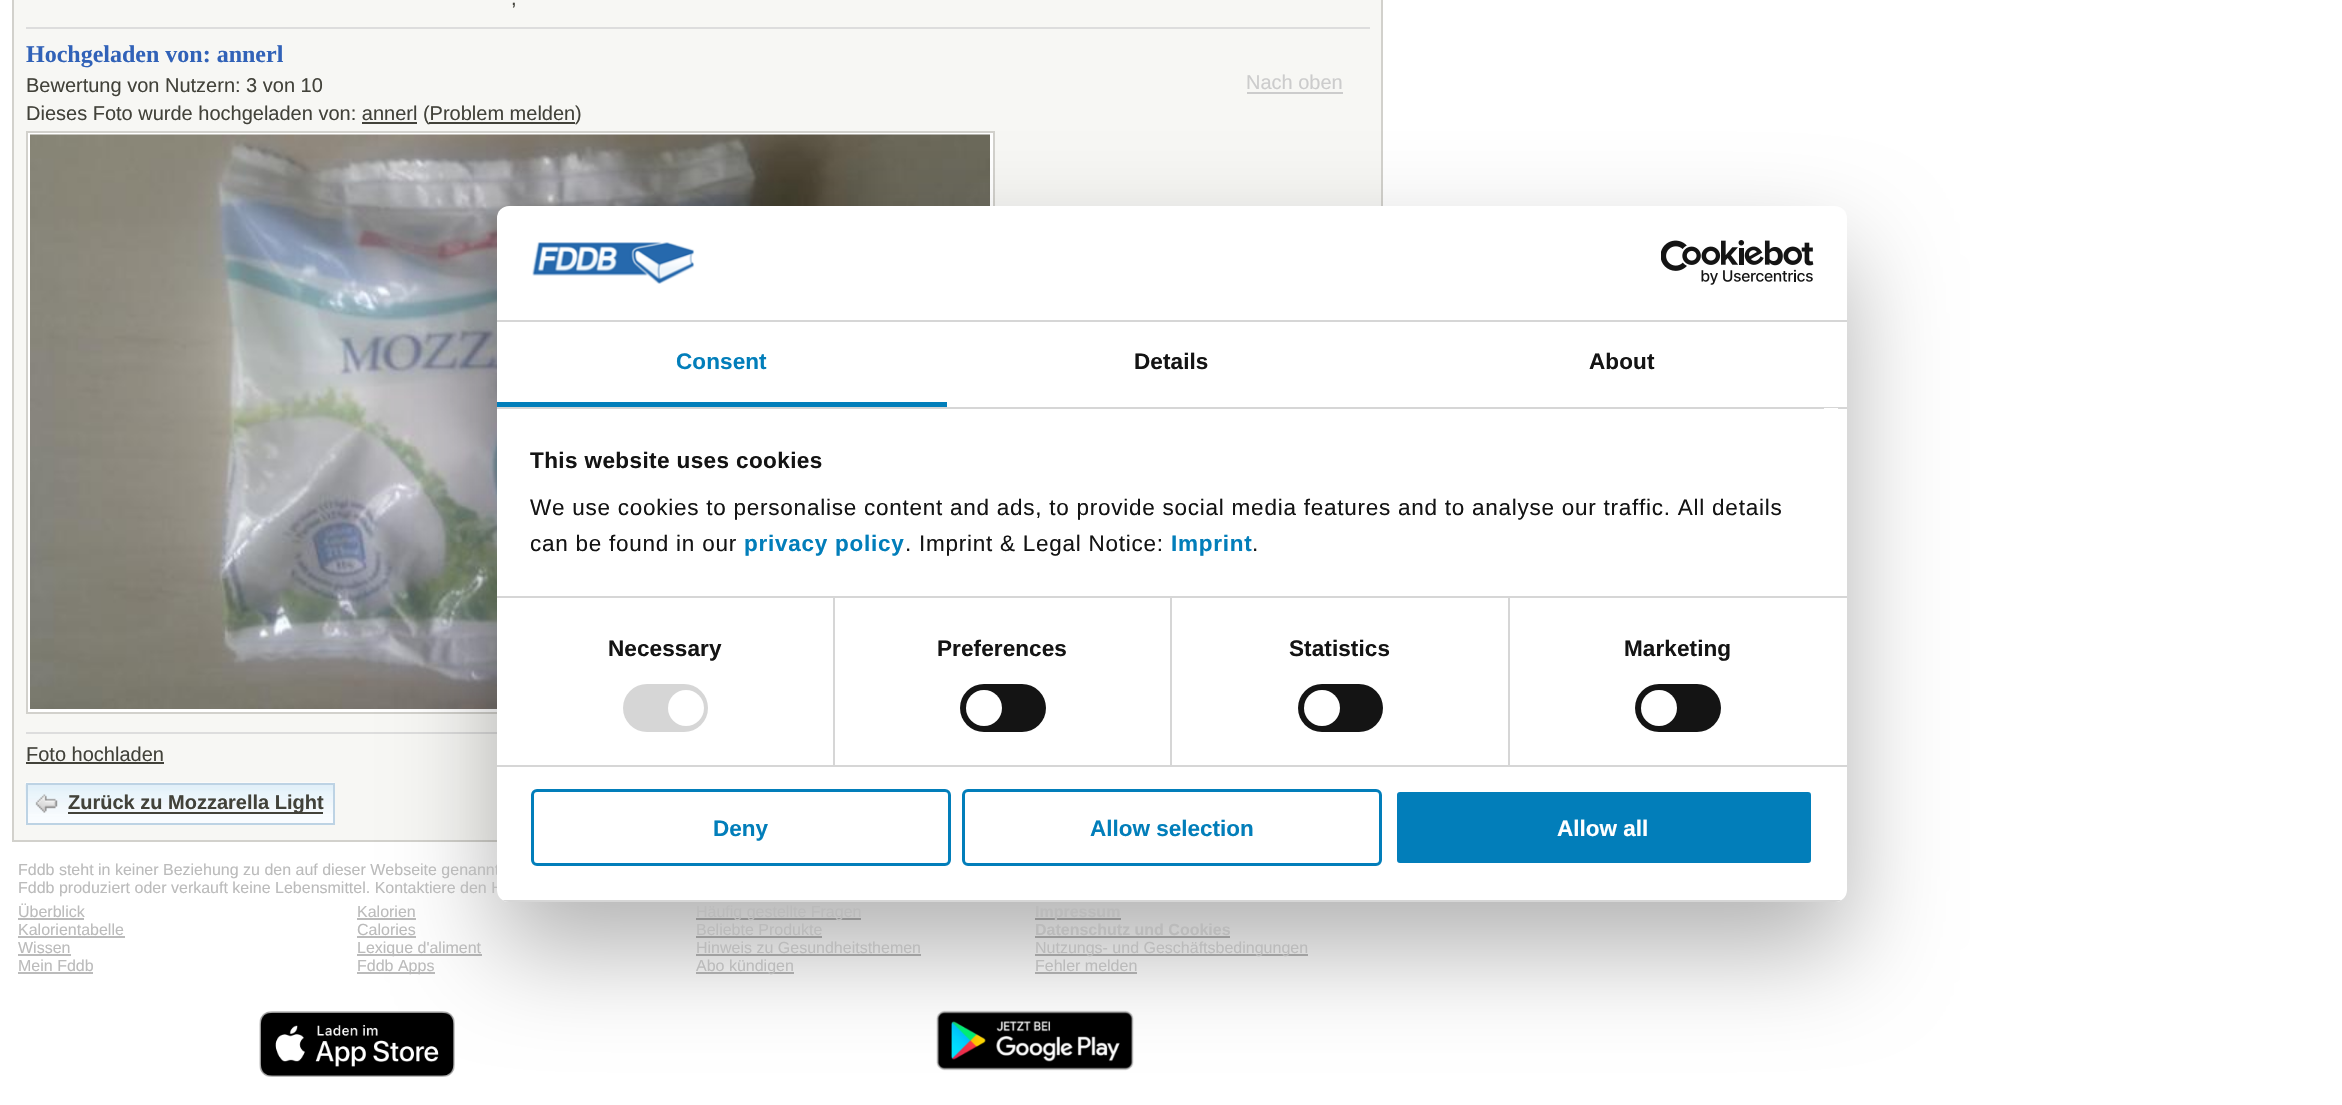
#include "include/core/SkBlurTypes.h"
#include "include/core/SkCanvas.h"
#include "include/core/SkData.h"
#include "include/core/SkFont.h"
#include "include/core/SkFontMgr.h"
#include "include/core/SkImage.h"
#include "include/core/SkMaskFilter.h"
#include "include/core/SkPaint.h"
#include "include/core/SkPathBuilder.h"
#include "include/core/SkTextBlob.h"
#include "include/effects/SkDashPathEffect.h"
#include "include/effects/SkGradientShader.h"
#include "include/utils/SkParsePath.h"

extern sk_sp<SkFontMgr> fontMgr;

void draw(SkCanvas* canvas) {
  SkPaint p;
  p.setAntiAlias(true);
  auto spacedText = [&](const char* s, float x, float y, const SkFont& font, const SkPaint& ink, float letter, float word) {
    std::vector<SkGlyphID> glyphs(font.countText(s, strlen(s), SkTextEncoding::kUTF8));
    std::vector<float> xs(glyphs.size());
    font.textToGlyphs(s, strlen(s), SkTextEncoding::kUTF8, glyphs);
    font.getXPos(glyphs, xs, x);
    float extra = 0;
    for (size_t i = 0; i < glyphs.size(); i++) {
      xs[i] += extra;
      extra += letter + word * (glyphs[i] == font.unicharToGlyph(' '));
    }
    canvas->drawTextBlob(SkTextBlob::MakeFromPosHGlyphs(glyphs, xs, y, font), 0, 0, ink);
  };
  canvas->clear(SK_ColorWHITE);
  p.setColor(SkColorSetRGB(247, 247, 244));
  canvas->drawRect(SkRect::MakeLTRB(13, -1, 1382, 841), p);
  p.setStyle(SkPaint::kStroke_Style);
  p.setStrokeWidth(2);
  p.setColor(SkColorSetRGB(210, 209, 204));
  canvas->drawRect(SkRect::MakeLTRB(13, -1, 1382, 841), p);
  p.setStyle(SkPaint::kFill_Style);
  p.setColor(SkColorSetRGB(221, 221, 221));
  canvas->drawRect(SkRect::MakeLTRB(26, 27, 1370, 29), p);
  p.setColor(SkColorSetRGB(66, 66, 58));
  canvas->drawRect(SkRect::MakeLTRB(362, 122, 417, 124), p);
  canvas->drawRect(SkRect::MakeLTRB(429, 122, 575, 124), p);
  p.setColor(SkColorSetRGB(204, 204, 204));
  canvas->drawRect(SkRect::MakeLTRB(1247, 92, 1343, 94), p);
  p.setColor(SK_ColorWHITE);
  canvas->drawRect(SkRect::MakeLTRB(27, 132, 994, 713), p);
  p.setStyle(SkPaint::kStroke_Style);
  p.setColor(SkColorSetRGB(210, 209, 204));
  canvas->drawRect(SkRect::MakeLTRB(27, 132, 994, 713), p);
  canvas->drawImageRect(SkImages::DeferredFromEncodedData(SkData::MakeFromFileName("images/1.png")), SkRect::MakeLTRB(30, 134, 990, 709), SkSamplingOptions());
  p.setStyle(SkPaint::kFill_Style);
  p.setColor(SkColorSetRGB(221, 221, 221));
  canvas->drawRect(SkRect::MakeLTRB(26, 732, 497, 734), p);
  p.setColor(SkColorSetRGB(66, 66, 58));
  canvas->drawRect(SkRect::MakeLTRB(26, 762, 164, 764), p);
  canvas->drawImageRect(SkImages::DeferredFromEncodedData(SkData::MakeFromFileName("images/2.png")), SkRect::MakeLTRB(25, 782, 335, 825), SkSamplingOptions());
  p.setStyle(SkPaint::kStroke_Style);
  p.setColor(SkColorSetRGB(189, 211, 228));
  canvas->drawRect(SkRect::MakeLTRB(27, 784, 334, 824), p);
  canvas->drawImageRect(SkImages::DeferredFromEncodedData(SkData::MakeFromFileName("images/3.png")), SkRect::MakeLTRB(35, 794, 58, 813), SkSamplingOptions());
  p.setStyle(SkPaint::kFill_Style);
  p.setColor(SkColorSetRGB(66, 66, 58));
  canvas->drawRect(SkRect::MakeLTRB(68, 812, 323, 814), p);
  p.setColor(SkColorSetRGB(187, 187, 187));
  canvas->drawRect(SkRect::MakeLTRB(18, 918, 84, 920), p);
  canvas->drawRect(SkRect::MakeLTRB(18, 936, 125, 938), p);
  canvas->drawRect(SkRect::MakeLTRB(18, 954, 71, 956), p);
  canvas->drawRect(SkRect::MakeLTRB(18, 972, 93, 974), p);
  canvas->drawRect(SkRect::MakeLTRB(357, 918, 416, 920), p);
  canvas->drawRect(SkRect::MakeLTRB(357, 936, 416, 938), p);
  canvas->drawRect(SkRect::MakeLTRB(357, 954, 482, 956), p);
  canvas->drawRect(SkRect::MakeLTRB(357, 972, 435, 974), p);
  canvas->drawRect(SkRect::MakeLTRB(696, 918, 861, 920), p);
  canvas->drawRect(SkRect::MakeLTRB(696, 936, 822, 938), p);
  canvas->drawRect(SkRect::MakeLTRB(696, 954, 921, 956), p);
  canvas->drawRect(SkRect::MakeLTRB(696, 972, 794, 974), p);
  canvas->drawRect(SkRect::MakeLTRB(1035, 918, 1121, 920), p);
  canvas->drawRect(SkRect::MakeLTRB(1035, 936, 1230, 938), p);
  canvas->drawRect(SkRect::MakeLTRB(1035, 954, 1308, 956), p);
  canvas->drawRect(SkRect::MakeLTRB(1035, 972, 1137, 974), p);
  canvas->drawImageRect(SkImages::DeferredFromEncodedData(SkData::MakeFromFileName("images/4.png")), SkRect::MakeLTRB(259, 1011, 455, 1077), SkSamplingOptions());
  canvas->drawImageRect(SkImages::DeferredFromEncodedData(SkData::MakeFromFileName("images/5.png")), SkRect::MakeLTRB(936, 1010, 1134, 1071), SkSamplingOptions());
  p.setColor(SkColorSetARGB(77, 0, 0, 0));
  p.setMaskFilter(SkMaskFilter::MakeBlur(kNormal_SkBlurStyle, 51));
  canvas->drawRoundRect(SkRect::MakeLTRB(497, 254, 1847, 950), 12, 12, p);
  p.setMaskFilter(nullptr);
  SkFont font1(fontMgr->matchFamilyStyle("Liberation Sans", SkFontStyle::Normal()), 20);
  font1.setSubpixel(true);
  p.setColor(SkColorSetRGB(66, 66, 58));
  canvas->drawString(",", 511, 5, font1, p);
  SkFont font2(fontMgr->matchFamilyStyle("Liberation Serif", SkFontStyle::Bold()), 24);
  font2.setSubpixel(true);
  p.setColor(SkColorSetRGB(49, 98, 184));
  canvas->drawString("Hochgeladen von: annerl", 26, 62, font2, p);
  p.setColor(SkColorSetRGB(66, 66, 58));
  canvas->drawString("Bewertung von Nutzern: 3 von 10", 26, 92, font1, p);
  canvas->drawString("Dieses Foto wurde hochgeladen von: annerl (Problem melden", 26, 120, font1, p);
  canvas->drawString(")", 575, 120, font1, p);
  p.setColor(SkColorSetRGB(204, 204, 204));
  canvas->drawString("Nach oben", 1246, 89, font1, p);
  p.setColor(SkColorSetRGB(66, 66, 58));
  canvas->drawString("Foto hochladen", 26, 761, font1, p);
  SkFont font3(fontMgr->matchFamilyStyle("Liberation Sans", SkFontStyle::Bold()), 20);
  font3.setSubpixel(true);
  canvas->drawString("Zurück zu Mozzarella Light", 68, 809, font3, p);
  SkFont font4(fontMgr->matchFamilyStyle("Liberation Sans", SkFontStyle::Normal()), 16);
  font4.setSubpixel(true);
  p.setColor(SkColorSetRGB(187, 187, 187));
  canvas->drawString("Fddb steht in keiner Beziehung zu den auf dieser Webseite genannt", 18, 875, font4, p);
  canvas->drawString("Fddb produziert oder verkauft keine Lebensmittel. Kontaktiere den H", 18, 893, font4, p);
  canvas->drawString("Überblick", 18, 917, font4, p);
  canvas->drawString("Kalorientabelle", 18, 935, font4, p);
  canvas->drawString("Wissen", 18, 953, font4, p);
  canvas->drawString("Mein Fddb", 18, 971, font4, p);
  canvas->drawString("Kalorien", 357, 917, font4, p);
  canvas->drawString("Calories", 357, 935, font4, p);
  canvas->drawString("Lexique d'aliment", 357, 953, font4, p);
  canvas->drawString("Fddb Apps", 357, 971, font4, p);
  canvas->drawString("Häufig gestellte Fragen", 696, 917, font4, p);
  canvas->drawString("Beliebte Produkte", 696, 935, font4, p);
  canvas->drawString("Hinweis zu Gesundheitsthemen", 696, 953, font4, p);
  canvas->drawString("Abo kündigen", 696, 971, font4, p);
  SkFont font5(fontMgr->matchFamilyStyle("Liberation Sans", SkFontStyle::Bold()), 16);
  font5.setSubpixel(true);
  canvas->drawString("Impressum", 1035, 917, font5, p);
  canvas->drawString("Datenschutz und Cookies", 1035, 935, font5, p);
  canvas->drawString("Nutzungs- und Geschäftsbedingungen", 1035, 953, font4, p);
  canvas->drawString("Fehler melden", 1035, 971, font4, p);
  p.setColor(SK_ColorWHITE);
  canvas->drawRoundRect(SkRect::MakeLTRB(497, 206, 1847, 902), 12, 12, p);
  p.setColor(SkColorSetRGB(214, 214, 214));
  canvas->drawRect(SkRect::MakeLTRB(497, 320, 1847, 322), p);
  canvas->drawImageRect(SkImages::DeferredFromEncodedData(SkData::MakeFromFileName("images/6.png")), SkRect::MakeLTRB(532, 241, 695, 284), SkSamplingOptions());
  canvas->drawImageRect(SkImages::DeferredFromEncodedData(SkData::MakeFromFileName("images/7.png")), SkRect::MakeLTRB(1661, 240, 1814, 285), SkSamplingOptions());
  canvas->drawRect(SkRect::MakeLTRB(497, 407, 1847, 409), p);
  p.setColor(SkColorSetRGB(2, 126, 186));
  canvas->drawRect(SkRect::MakeLTRB(497, 402, 947, 407), p);
  SkFont font6(fontMgr->matchFamilyStyle("Liberation Sans", SkFontStyle::Bold()), 22.5f);
  font6.setSubpixel(true);
  spacedText("Consent", 676, 369, font6, p, 0.1f, 0);
  p.setColor(SkColorSetRGB(20, 20, 20));
  spacedText("Details", 1134, 369, font6, p, 0.1f, 0);
  spacedText("About", 1589, 369, font6, p, 0.1f, 0);
  p.setColor(SK_ColorWHITE);
  canvas->drawRect(SkRect::MakeLTRB(1824, 408, 1838, 409), p);
  p.setColor(SkColorSetRGB(20, 20, 20));
  spacedText("This website uses cookies", 530, 468, font6, p, 0.4f, 0);
  SkFont font7(fontMgr->matchFamilyStyle("Liberation Sans", SkFontStyle::Normal()), 22.5f);
  font7.setSubpixel(true);
  spacedText("We use cookies to personalise content and ads, to provide social media features and to analyse our traffic. All details", 530, 515, font7, p, 0.75f, 0);
  spacedText("can be found in our", 530, 551, font7, p, 0.75f, 0);
  p.setColor(SkColorSetRGB(2, 126, 186));
  spacedText("privacy policy", 744, 551, font6, p, 0.75f, 0);
  p.setColor(SkColorSetRGB(20, 20, 20));
  spacedText(". Imprint & Legal Notice:", 905, 551, font7, p, 0.75f, 0);
  p.setColor(SkColorSetRGB(2, 126, 186));
  spacedText("Imprint", 1171, 551, font6, p, 0.75f, 0);
  p.setColor(SkColorSetRGB(20, 20, 20));
  spacedText(".", 1252, 551, font7, p, 0.75f, 0);
  p.setColor(SkColorSetRGB(214, 214, 214));
  canvas->drawRect(SkRect::MakeLTRB(497, 765, 1847, 767), p);
  canvas->drawRect(SkRect::MakeLTRB(833, 597, 835, 765), p);
  p.setColor(SkColorSetRGB(20, 20, 20));
  spacedText("Necessary", 608, 656, font6, p, 0.1f, 0);
  p.setColor(SkColorSetRGB(214, 214, 214));
  canvas->drawRoundRect(SkRect::MakeLTRB(623, 684, 708, 732), 24, 24, p);
  p.setColor(SK_ColorWHITE);
  canvas->drawCircle(686, 708, 18, p);
  p.setColor(SkColorSetRGB(214, 214, 214));
  canvas->drawRect(SkRect::MakeLTRB(1170, 597, 1172, 765), p);
  p.setColor(SkColorSetRGB(20, 20, 20));
  spacedText("Preferences", 937, 656, font6, p, 0.1f, 0);
  canvas->drawRoundRect(SkRect::MakeLTRB(960, 684, 1046, 732), 24, 24, p);
  p.setColor(SK_ColorWHITE);
  canvas->drawCircle(984, 708, 18, p);
  p.setColor(SkColorSetRGB(214, 214, 214));
  canvas->drawRect(SkRect::MakeLTRB(1508, 597, 1510, 765), p);
  canvas->drawRect(SkRect::MakeLTRB(497, 596, 1847, 598), p);
  p.setColor(SkColorSetRGB(20, 20, 20));
  spacedText("Statistics", 1289, 656, font6, p, 0.1f, 0);
  canvas->drawRoundRect(SkRect::MakeLTRB(1298, 684, 1383, 732), 24, 24, p);
  p.setColor(SK_ColorWHITE);
  canvas->drawCircle(1322, 708, 18, p);
  p.setColor(SkColorSetRGB(20, 20, 20));
  spacedText("Marketing", 1624, 656, font6, p, 0.1f, 0);
  canvas->drawRoundRect(SkRect::MakeLTRB(1635, 684, 1721, 732), 24, 24, p);
  p.setColor(SK_ColorWHITE);
  canvas->drawCircle(1659, 708, 18, p);
  canvas->save();
  canvas->clipPath(SkPathBuilder().moveTo(509, 206).lineTo(1835, 206).cubicTo(1841.5f, 206, 1847, 211.5f, 1847, 218).lineTo(1847, 890).cubicTo(1847, 896.5f, 1841.5f, 902, 1835, 902).lineTo(509, 902).cubicTo(502.5f, 902, 497, 896.5f, 497, 890).lineTo(497, 218).cubicTo(497, 211.5f, 502.5f, 206, 509, 206).close().detach(), true);
  p.setColor(SkColorSetRGB(214, 214, 214));
  canvas->drawRect(SkRect::MakeLTRB(497, 900, 1847, 902), p);
  canvas->restore();
  p.setStyle(SkPaint::kStroke_Style);
  p.setStrokeWidth(3);
  p.setColor(SkColorSetRGB(2, 126, 186));
  canvas->drawRoundRect(SkRect::MakeLTRB(532.5f, 790.5f, 949.5f, 864.5f), 4.5f, 4.5f, p);
  p.setStyle(SkPaint::kFill_Style);
  canvas->drawString("Deny", 713, 836, font6, p);
  p.setStyle(SkPaint::kStroke_Style);
  canvas->drawRoundRect(SkRect::MakeLTRB(963.5f, 790.5f, 1380.5f, 864.5f), 4.5f, 4.5f, p);
  p.setStyle(SkPaint::kFill_Style);
  canvas->drawString("Allow selection", 1090, 836, font6, p);
  canvas->drawRoundRect(SkRect::MakeLTRB(1395.5f, 790.5f, 1812.5f, 864.5f), 4.5f, 4.5f, p);
  p.setStyle(SkPaint::kStroke_Style);
  p.setColor(SK_ColorWHITE);
  canvas->drawRoundRect(SkRect::MakeLTRB(1395.5f, 790.5f, 1812.5f, 864.5f), 4.5f, 4.5f, p);
  p.setStyle(SkPaint::kFill_Style);
  canvas->drawString("Allow all", 1557, 836, font6, p);
}
